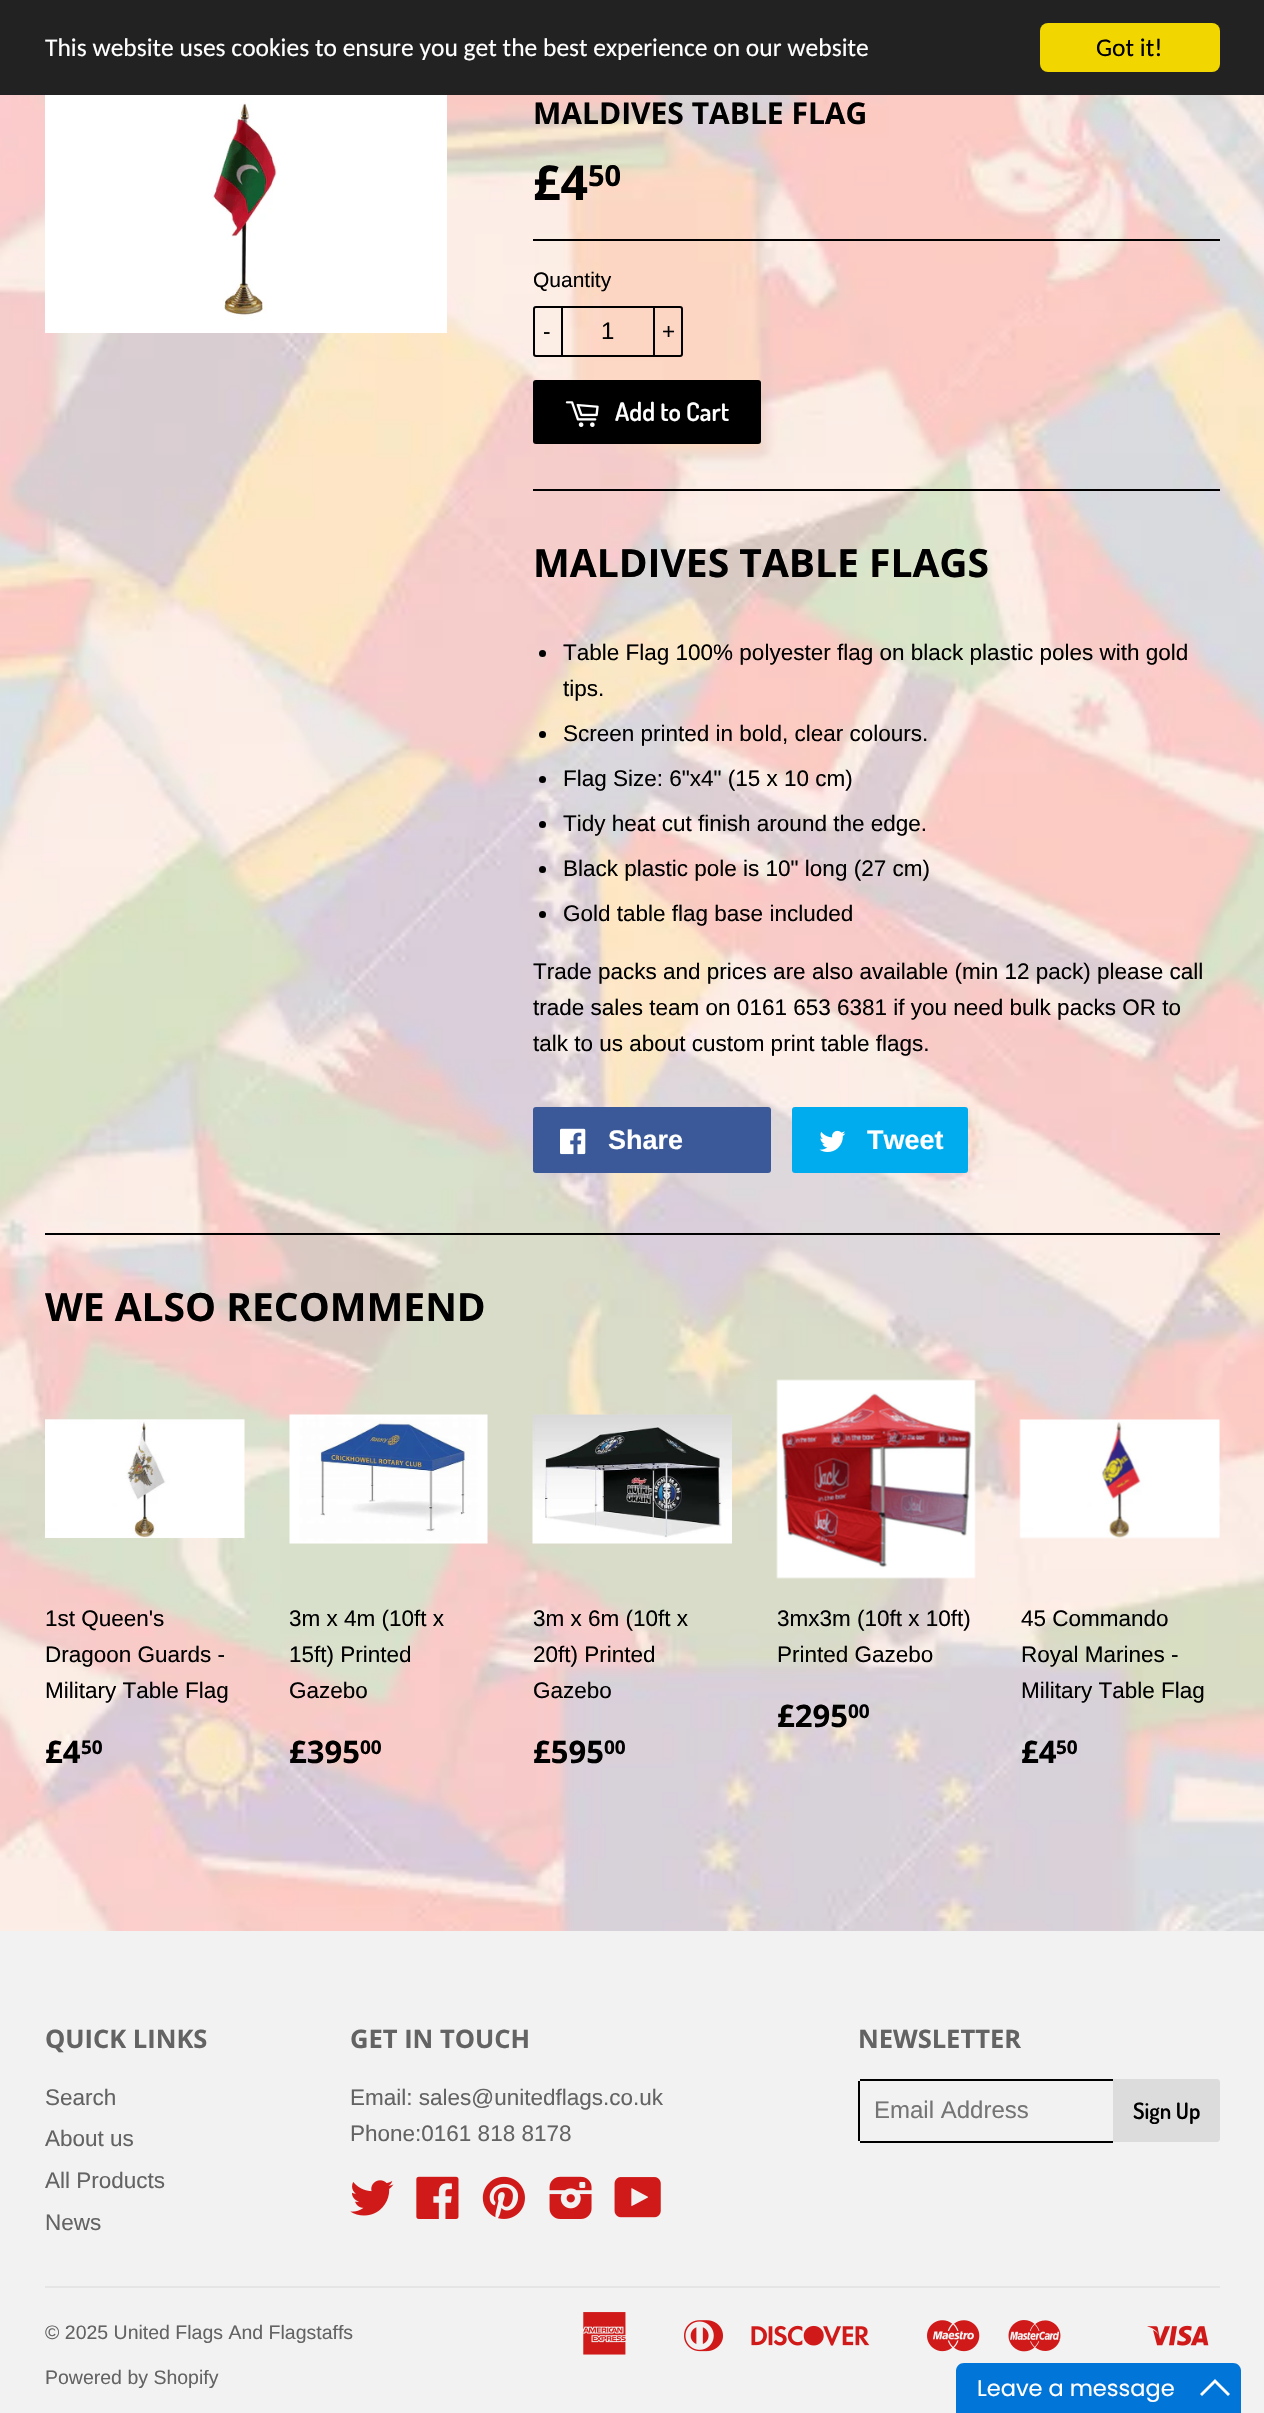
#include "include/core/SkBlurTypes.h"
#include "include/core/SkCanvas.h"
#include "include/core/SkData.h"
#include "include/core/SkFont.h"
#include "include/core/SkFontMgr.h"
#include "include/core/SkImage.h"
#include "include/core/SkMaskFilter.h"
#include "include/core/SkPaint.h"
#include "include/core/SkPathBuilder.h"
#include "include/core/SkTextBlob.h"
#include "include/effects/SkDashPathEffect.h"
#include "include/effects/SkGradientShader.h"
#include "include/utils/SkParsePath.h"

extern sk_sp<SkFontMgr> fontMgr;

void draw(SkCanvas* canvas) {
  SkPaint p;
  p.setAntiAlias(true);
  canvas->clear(SK_ColorWHITE);
  canvas->drawImageRect(SkImages::DeferredFromEncodedData(SkData::MakeFromFileName("images/1.png")), SkRect::MakeLTRB(0, 95, 1264, 1931), SkSamplingOptions());
  p.setColor(SkColorSetRGB(34, 34, 34));
  canvas->drawRect(SkRect::MakeLTRB(0, 0, 1264, 95), p);
  p.setColor(SkColorSetRGB(241, 214, 0));
  canvas->drawRoundRect(SkRect::MakeLTRB(1040, 23, 1220, 72), 8, 8, p);
  canvas->drawImageRect(SkImages::DeferredFromEncodedData(SkData::MakeFromFileName("images/2.png")), SkRect::MakeLTRB(45, 95, 447, 333), SkSamplingOptions());
  p.setColor(SK_ColorBLACK);
  canvas->drawRect(SkRect::MakeLTRB(533, 239, 1220, 241), p);
  p.setStyle(SkPaint::kStroke_Style);
  p.setStrokeWidth(2);
  canvas->drawRoundRect(SkRect::MakeLTRB(534, 307, 682, 356), 2, 2, p);
  p.setStyle(SkPaint::kFill_Style);
  canvas->drawRect(SkRect::MakeLTRB(561, 306, 563, 357), p);
  canvas->drawRect(SkRect::MakeLTRB(653, 306, 655, 357), p);
  canvas->drawRoundRect(SkRect::MakeLTRB(533, 380, 761, 444), 3, 3, p);
  canvas->drawImageRect(SkImages::DeferredFromEncodedData(SkData::MakeFromFileName("images/3.png")), SkRect::MakeLTRB(565, 401, 599, 427), SkSamplingOptions());
  canvas->drawRect(SkRect::MakeLTRB(533, 489, 1220, 491), p);
  canvas->drawCircle(542.5f, 653.5f, 3.5f, p);
  canvas->drawCircle(542.5f, 734.5f, 3.5f, p);
  canvas->drawCircle(542.5f, 779.5f, 3.5f, p);
  canvas->drawCircle(542.5f, 824.5f, 3.5f, p);
  canvas->drawCircle(542.5f, 869.5f, 3.5f, p);
  canvas->drawCircle(542.5f, 914.5f, 3.5f, p);
  p.setColor(SkColorSetRGB(59, 89, 152));
  canvas->drawRoundRect(SkRect::MakeLTRB(533, 1107, 771, 1173), 3, 3, p);
  canvas->drawImageRect(SkImages::DeferredFromEncodedData(SkData::MakeFromFileName("images/4.png")), SkRect::MakeLTRB(560, 1128, 586, 1155), SkSamplingOptions());
  p.setColor(SkColorSetRGB(0, 172, 237));
  canvas->drawRoundRect(SkRect::MakeLTRB(792, 1107, 968, 1173), 3, 3, p);
  canvas->drawImageRect(SkImages::DeferredFromEncodedData(SkData::MakeFromFileName("images/5.png")), SkRect::MakeLTRB(819, 1130, 846, 1152), SkSamplingOptions());
  p.setColor(SK_ColorBLACK);
  canvas->drawRect(SkRect::MakeLTRB(45, 1233, 1220, 1235), p);
  canvas->drawImageRect(SkImages::DeferredFromEncodedData(SkData::MakeFromFileName("images/6.png")), SkRect::MakeLTRB(45, 1419, 245, 1538), SkSamplingOptions());
  canvas->drawImageRect(SkImages::DeferredFromEncodedData(SkData::MakeFromFileName("images/7.png")), SkRect::MakeLTRB(289, 1414, 488, 1544), SkSamplingOptions());
  canvas->drawImageRect(SkImages::DeferredFromEncodedData(SkData::MakeFromFileName("images/8.png")), SkRect::MakeLTRB(532, 1414, 732, 1544), SkSamplingOptions());
  canvas->drawImageRect(SkImages::DeferredFromEncodedData(SkData::MakeFromFileName("images/9.png")), SkRect::MakeLTRB(776, 1379, 976, 1579), SkSamplingOptions());
  canvas->drawImageRect(SkImages::DeferredFromEncodedData(SkData::MakeFromFileName("images/10.png")), SkRect::MakeLTRB(1019, 1419, 1220, 1539), SkSamplingOptions());
  p.setColor(SkColorSetRGB(242, 242, 242));
  canvas->drawRect(SkRect::MakeLTRB(0, 1931, 1264, 2413), p);
  canvas->drawImageRect(SkImages::DeferredFromEncodedData(SkData::MakeFromFileName("images/11.png")), SkRect::MakeLTRB(350, 2180, 394, 2216), SkSamplingOptions());
  canvas->drawImageRect(SkImages::DeferredFromEncodedData(SkData::MakeFromFileName("images/12.png")), SkRect::MakeLTRB(416, 2176, 459, 2219), SkSamplingOptions());
  canvas->drawImageRect(SkImages::DeferredFromEncodedData(SkData::MakeFromFileName("images/13.png")), SkRect::MakeLTRB(482, 2176, 525, 2219), SkSamplingOptions());
  canvas->drawImageRect(SkImages::DeferredFromEncodedData(SkData::MakeFromFileName("images/14.png")), SkRect::MakeLTRB(549, 2176, 592, 2219), SkSamplingOptions());
  canvas->drawImageRect(SkImages::DeferredFromEncodedData(SkData::MakeFromFileName("images/15.png")), SkRect::MakeLTRB(614, 2177, 661, 2218), SkSamplingOptions());
  p.setColor(SK_ColorBLACK);
  canvas->drawRect(SkRect::MakeLTRB(860, 2079, 1113, 2081), p);
  canvas->drawRect(SkRect::MakeLTRB(860, 2141, 1113, 2143), p);
  canvas->drawRect(SkRect::MakeLTRB(858, 2081, 860, 2141), p);
  p.setColor(SkColorSetRGB(220, 220, 220));
  canvas->drawPath(SkPathBuilder().moveTo(1113, 2079).lineTo(1217, 2079).cubicTo(1218.5f, 2079, 1220, 2080.5f, 1220, 2082).lineTo(1220, 2139).cubicTo(1220, 2140.5f, 1218.5f, 2142, 1217, 2142).lineTo(1113, 2142).close().detach(), p);
  p.setColor(SkColorSetRGB(229, 229, 229));
  canvas->drawRect(SkRect::MakeLTRB(45, 2286, 1220, 2288), p);
  canvas->drawImageRect(SkImages::DeferredFromEncodedData(SkData::MakeFromFileName("images/16.png")), SkRect::MakeLTRB(583, 2312, 626, 2355), SkSamplingOptions());
  canvas->drawImageRect(SkImages::DeferredFromEncodedData(SkData::MakeFromFileName("images/17.png")), SkRect::MakeLTRB(684, 2320, 723, 2352), SkSamplingOptions());
  canvas->drawImageRect(SkImages::DeferredFromEncodedData(SkData::MakeFromFileName("images/18.png")), SkRect::MakeLTRB(751, 2325, 870, 2346), SkSamplingOptions());
  canvas->drawImageRect(SkImages::DeferredFromEncodedData(SkData::MakeFromFileName("images/19.png")), SkRect::MakeLTRB(927, 2320, 980, 2352), SkSamplingOptions());
  canvas->drawImageRect(SkImages::DeferredFromEncodedData(SkData::MakeFromFileName("images/20.png")), SkRect::MakeLTRB(1008, 2320, 1061, 2352), SkSamplingOptions());
  canvas->drawImageRect(SkImages::DeferredFromEncodedData(SkData::MakeFromFileName("images/21.png")), SkRect::MakeLTRB(1147, 2325, 1209, 2346), SkSamplingOptions());
  p.setColor(SkColorSetRGB(2, 117, 216));
  canvas->drawPath(SkPathBuilder().moveTo(964, 2363).lineTo(1233, 2363).cubicTo(1237.5f, 2363, 1241, 2366.5f, 1241, 2371).lineTo(1241, 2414).lineTo(956, 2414).lineTo(956, 2371).cubicTo(956, 2366.5f, 959.5f, 2363, 964, 2363).close().detach(), p);
  p.setColor(SK_ColorWHITE);
  canvas->drawPath(SkPathBuilder().moveTo(1215, 2379).lineTo(1230, 2394).lineTo(1228, 2396).lineTo(1215, 2383).lineTo(1202, 2396).lineTo(1200, 2394).close().detach(), p);
  SkFont font1(fontMgr->matchFamilyStyle("Carlito", SkFontStyle::Normal()), 25.5f);
  font1.setSubpixel(true);
  canvas->drawString("This website uses cookies to ensure you get the best experience on our website", 45, 56, font1, p);
  p.setColor(SK_ColorBLACK);
  canvas->drawString("Got it!", 1096, 56, font1, p);
  SkFont font2(fontMgr->matchFamilyStyle("Open Sans", SkFontStyle::Bold()), 30);
  font2.setSubpixel(true);
  canvas->drawString("MALDIVES TABLE FLAG", 533, 124, font2, p);
  SkFont font3(fontMgr->matchFamilyStyle("Open Sans", SkFontStyle::Bold()), 48);
  font3.setSubpixel(true);
  canvas->drawString("£4", 533, 200, font3, p);
  SkFont font4(fontMgr->matchFamilyStyle("Open Sans", SkFontStyle::Bold()), 29);
  font4.setSubpixel(true);
  canvas->drawString("50", 588, 186, font4, p);
  SkFont font5(fontMgr->matchFamilyStyle("Liberation Sans", SkFontStyle::Normal()), 21);
  font5.setSubpixel(true);
  canvas->drawString("Quantity", 533, 287, font5, p);
  SkFont font6(fontMgr->matchFamilyStyle("Liberation Sans", SkFontStyle::Normal()), 22.5f);
  font6.setSubpixel(true);
  canvas->drawString("-", 543, 339, font6, p);
  SkFont font7(fontMgr->matchFamilyStyle("Liberation Sans", SkFontStyle::Normal()), 24);
  font7.setSubpixel(true);
  canvas->drawString("1", 601, 339, font7, p);
  canvas->drawString("+", 662, 339, font6, p);
  SkFont font8(fontMgr->matchFamilyStyle("Dosis", SkFontStyle(600, SkFontStyle::kNormal_Width, SkFontStyle::kUpright_Slant)), 25.5f);
  font8.setSubpixel(true);
  p.setColor(SK_ColorWHITE);
  canvas->drawString("Add to Cart", 615, 421, font8, p);
  SkFont font9(fontMgr->matchFamilyStyle("Open Sans", SkFontStyle::Bold()), 39);
  font9.setSubpixel(true);
  p.setColor(SK_ColorBLACK);
  canvas->drawString("MALDIVES TABLE FLAGS", 533, 577, font9, p);
  canvas->drawString("Table Flag 100% polyester flag on black plastic poles with gold", 563, 660, font6, p);
  canvas->drawString("tips.", 563, 696, font6, p);
  canvas->drawString("Screen printed in bold, clear colours.", 563, 741, font6, p);
  canvas->drawString("Flag Size: 6\"x4\" (15 x 10 cm)", 563, 786, font6, p);
  canvas->drawString("Tidy heat cut finish around the edge.", 563, 831, font6, p);
  canvas->drawString("Black plastic pole is 10\" long (27 cm)", 563, 876, font6, p);
  canvas->drawString("Gold table flag base included", 563, 921, font6, p);
  canvas->drawString("Trade packs and prices are also available (min 12 pack) please call", 533, 979, font6, p);
  canvas->drawString("trade sales team on 0161 653 6381 if you need bulk packs OR to", 533, 1015, font6, p);
  canvas->drawString("talk to us about custom print table flags.", 533, 1051, font6, p);
  SkFont font10(fontMgr->matchFamilyStyle("Liberation Sans", SkFontStyle::Bold()), 27);
  font10.setSubpixel(true);
  p.setColor(SK_ColorWHITE);
  canvas->drawString("Share", 608, 1149, font10, p);
  canvas->drawString("Tweet", 867, 1149, font10, p);
  p.setColor(SK_ColorBLACK);
  canvas->drawString("WE ALSO RECOMMEND", 45, 1321, font9, p);
  canvas->drawString("1st Queen's", 45, 1626, font6, p);
  canvas->drawString("Dragoon Guards -", 45, 1662, font6, p);
  canvas->drawString("Military Table Flag", 45, 1698, font6, p);
  SkFont font11(fontMgr->matchFamilyStyle("Open Sans", SkFontStyle::Bold()), 31);
  font11.setSubpixel(true);
  canvas->drawString("£4", 45, 1763, font11, p);
  SkFont font12(fontMgr->matchFamilyStyle("Open Sans", SkFontStyle::Bold()), 19);
  font12.setSubpixel(true);
  canvas->drawString("50", 81, 1754, font12, p);
  canvas->drawString("3m x 4m (10ft x", 289, 1626, font6, p);
  canvas->drawString("15ft) Printed", 289, 1662, font6, p);
  canvas->drawString("Gazebo", 289, 1698, font6, p);
  canvas->drawString("£395", 289, 1763, font11, p);
  canvas->drawString("00", 360, 1754, font12, p);
  canvas->drawString("3m x 6m (10ft x", 533, 1626, font6, p);
  canvas->drawString("20ft) Printed", 533, 1662, font6, p);
  canvas->drawString("Gazebo", 533, 1698, font6, p);
  canvas->drawString("£595", 533, 1763, font11, p);
  canvas->drawString("00", 604, 1754, font12, p);
  canvas->drawString("3mx3m (10ft x 10ft)", 777, 1626, font6, p);
  canvas->drawString("Printed Gazebo", 777, 1662, font6, p);
  canvas->drawString("£295", 777, 1727, font11, p);
  canvas->drawString("00", 848, 1718, font12, p);
  canvas->drawString("45 Commando", 1021, 1626, font6, p);
  canvas->drawString("Royal Marines -", 1021, 1662, font6, p);
  canvas->drawString("Military Table Flag", 1021, 1698, font6, p);
  canvas->drawString("£4", 1021, 1763, font11, p);
  canvas->drawString("50", 1056, 1754, font12, p);
  SkFont font13(fontMgr->matchFamilyStyle("Open Sans", SkFontStyle::Bold()), 25.5f);
  font13.setSubpixel(true);
  p.setColor(SkColorSetRGB(99, 99, 99));
  canvas->drawString("QUICK LINKS", 45, 2048, font13, p);
  canvas->drawString("Search", 45, 2105, font6, p);
  canvas->drawString("About us", 45, 2146, font6, p);
  canvas->drawString("All Products", 45, 2188, font6, p);
  canvas->drawString("News", 45, 2230, font6, p);
  canvas->drawString("GET IN TOUCH", 350, 2048, font13, p);
  canvas->drawString("Email: sales@unitedflags.co.uk", 350, 2105, font6, p);
  canvas->drawString("Phone:0161 818 8178", 350, 2141, font6, p);
  canvas->drawString("NEWSLETTER", 858, 2048, font13, p);
  p.setColor(SkColorSetRGB(117, 117, 117));
  canvas->drawString("Email Address", 874, 2118, font7, p);
  SkFont font14(fontMgr->matchFamilyStyle("Dosis", SkFontStyle(600, SkFontStyle::kNormal_Width, SkFontStyle::kUpright_Slant)), 22.5f);
  font14.setSubpixel(true);
  p.setColor(SK_ColorBLACK);
  canvas->drawString("Sign Up", 1133, 2119, font14, p);
  SkFont font15(fontMgr->matchFamilyStyle("Liberation Sans", SkFontStyle::Normal()), 19.5f);
  font15.setSubpixel(true);
  p.setColor(SkColorSetRGB(99, 99, 99));
  canvas->drawString("© 2025 United Flags And Flagstaffs", 45, 2339, font15, p);
  canvas->drawString("Powered by Shopify", 45, 2384, font15, p);
  SkFont font16(fontMgr->matchFamilyStyle("Poppins", SkFontStyle::Normal()), 22.5f);
  font16.setSubpixel(true);
  p.setColor(SK_ColorWHITE);
  canvas->drawString("Leave a message", 977, 2396, font16, p);
}
